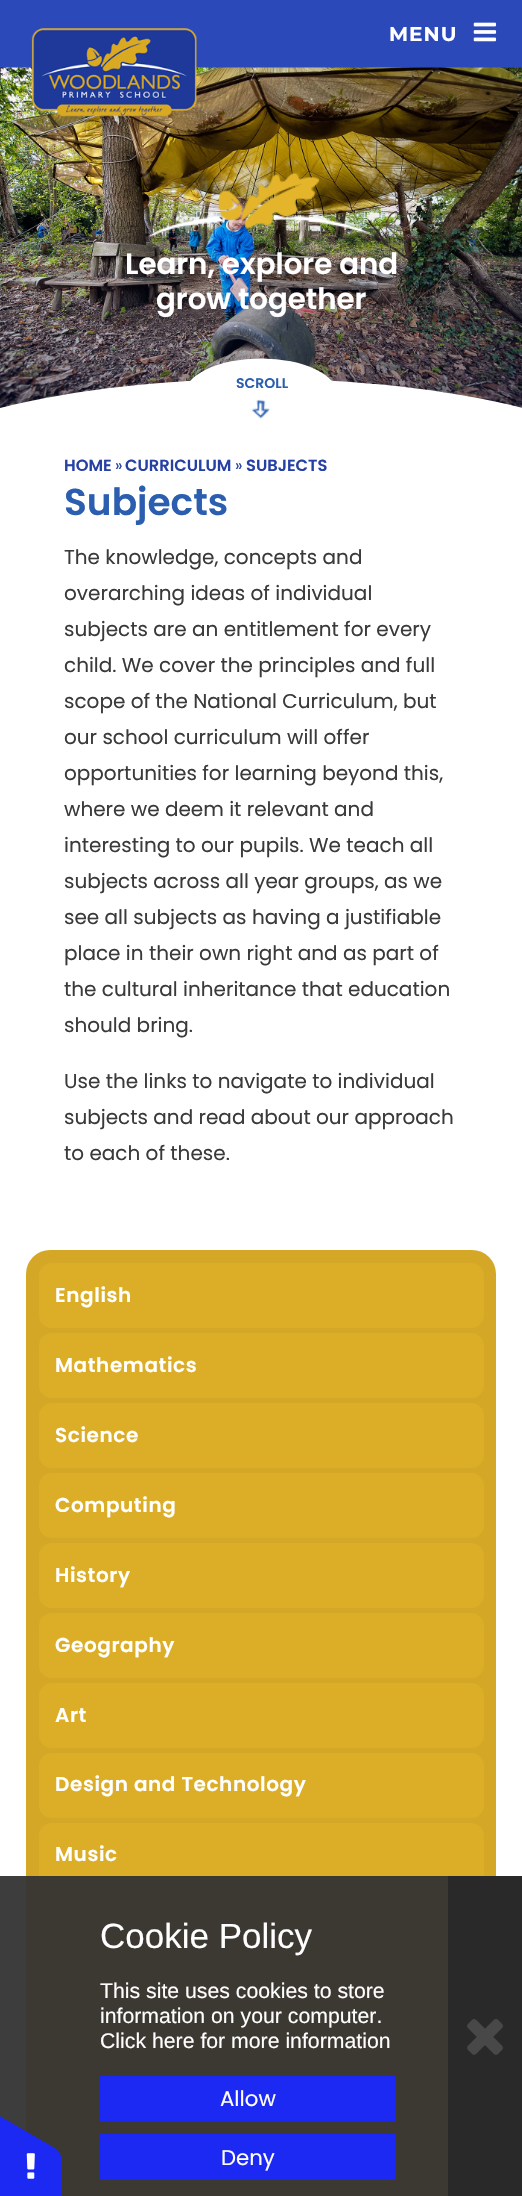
#include "include/core/SkBlurTypes.h"
#include "include/core/SkCanvas.h"
#include "include/core/SkData.h"
#include "include/core/SkFont.h"
#include "include/core/SkFontMgr.h"
#include "include/core/SkImage.h"
#include "include/core/SkMaskFilter.h"
#include "include/core/SkPaint.h"
#include "include/core/SkPathBuilder.h"
#include "include/core/SkTextBlob.h"
#include "include/effects/SkDashPathEffect.h"
#include "include/effects/SkGradientShader.h"
#include "include/utils/SkParsePath.h"

extern sk_sp<SkFontMgr> fontMgr;

void draw(SkCanvas* canvas) {
  SkPaint p;
  p.setAntiAlias(true);
  auto spacedText = [&](const char* s, float x, float y, const SkFont& font, const SkPaint& ink, float letter, float word) {
    std::vector<SkGlyphID> glyphs(font.countText(s, strlen(s), SkTextEncoding::kUTF8));
    std::vector<float> xs(glyphs.size());
    font.textToGlyphs(s, strlen(s), SkTextEncoding::kUTF8, glyphs);
    font.getXPos(glyphs, xs, x);
    float extra = 0;
    for (size_t i = 0; i < glyphs.size(); i++) {
      xs[i] += extra;
      extra += letter + word * (glyphs[i] == font.unicharToGlyph(' '));
    }
    canvas->drawTextBlob(SkTextBlob::MakeFromPosHGlyphs(glyphs, xs, y, font), 0, 0, ink);
  };
  canvas->clear(SK_ColorWHITE);
  p.setColor(SkColorSetRGB(43, 73, 185));
  canvas->drawRect(SkRect::MakeLTRB(0, 0, 522, 68), p);
  canvas->drawImageRect(SkImages::DeferredFromEncodedData(SkData::MakeFromFileName("images/3.png")), SkRect::MakeLTRB(0, 67, 522, 408), SkSamplingOptions());
  canvas->drawImageRect(SkImages::DeferredFromEncodedData(SkData::MakeFromFileName("images/1.png")), SkRect::MakeLTRB(31, 28, 197, 117), SkSamplingOptions());
  canvas->drawImageRect(SkImages::DeferredFromEncodedData(SkData::MakeFromFileName("images/2.png")), SkRect::MakeLTRB(473, 22, 497, 42), SkSamplingOptions());
  {
    const SkColor colors[] = {SkColorSetARGB(0, 3, 15, 59), SkColorSetARGB(115, 3, 15, 59)};
    const float stops[] = {0, 1};
    const SkPoint ends[] = {{261, 194}, {261, 428}};
    p.setShader(SkGradientShader::MakeLinear(ends, colors, stops, 2, SkTileMode::kClamp));
    p.setAlpha(255);
  }
  canvas->drawRect(SkRect::MakeLTRB(0, 205, 522, 408), p);
  canvas->drawImageRect(SkImages::DeferredFromEncodedData(SkData::MakeFromFileName("images/4.png")), SkRect::MakeLTRB(147, 172, 375, 238), SkSamplingOptions());
  p.setShader(nullptr);
  p.setColor(SK_ColorWHITE);
  canvas->drawPath(SkPathBuilder().moveTo(0, 429).lineTo(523, 429).lineTo(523, 408).cubicTo(446, 389, 356, 379, 261, 379).cubicTo(166, 379, 77, 389, 0, 408).close().detach(), p);
  canvas->drawOval(SkRect::MakeLTRB(183.5f, 358.5f, 338.5f, 433.5f), p);
  canvas->drawImageRect(SkImages::DeferredFromEncodedData(SkData::MakeFromFileName("images/5.png")), SkRect::MakeLTRB(251, 399, 270, 419), SkSamplingOptions());
  p.setColor(SkColorSetRGB(212, 168, 38));
  canvas->drawRoundRect(SkRect::MakeLTRB(26, 1250, 496, 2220), 24, 24, p);
  p.setColor(SkColorSetRGB(220, 174, 40));
  canvas->drawRoundRect(SkRect::MakeLTRB(39, 1263, 484, 1328), 13, 13, p);
  canvas->drawRoundRect(SkRect::MakeLTRB(39, 1333, 484, 1398), 13, 13, p);
  canvas->drawRoundRect(SkRect::MakeLTRB(39, 1403, 484, 1468), 13, 13, p);
  canvas->drawRoundRect(SkRect::MakeLTRB(39, 1473, 484, 1538), 13, 13, p);
  canvas->drawRoundRect(SkRect::MakeLTRB(39, 1543, 484, 1608), 13, 13, p);
  canvas->drawRoundRect(SkRect::MakeLTRB(39, 1613, 484, 1678), 13, 13, p);
  canvas->drawRoundRect(SkRect::MakeLTRB(39, 1683, 484, 1748), 13, 13, p);
  canvas->drawRoundRect(SkRect::MakeLTRB(39, 1753, 484, 1818), 13, 13, p);
  canvas->drawRoundRect(SkRect::MakeLTRB(39, 1823, 484, 1888), 13, 13, p);
  canvas->drawRoundRect(SkRect::MakeLTRB(39, 1893, 484, 1958), 13, 13, p);
  canvas->drawRoundRect(SkRect::MakeLTRB(39, 1963, 484, 2026), 13, 13, p);
  canvas->drawRoundRect(SkRect::MakeLTRB(39, 2031, 484, 2096), 13, 13, p);
  canvas->drawRoundRect(SkRect::MakeLTRB(39, 2101, 484, 2166), 13, 13, p);
  canvas->drawRect(SkRect::MakeLTRB(62, 2171, 448, 2196), p);
  p.setColor(SkColorSetARGB(242, 51, 51, 51));
  canvas->drawRect(SkRect::MakeLTRB(0, 1876, 448, 2196), p);
  p.setColor(SkColorSetRGB(27, 41, 243));
  canvas->drawPath(SkPathBuilder().moveTo(62, 2162).lineTo(62, 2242).cubicTo(62, 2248, 60, 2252, 57, 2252).lineTo(-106, 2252).cubicTo(-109, 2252, -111, 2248, -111, 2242).lineTo(-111, 2162).cubicTo(-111, 2157, -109, 2152, -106, 2152).lineTo(57, 2152).cubicTo(60, 2152, 62, 2157, 62, 2162).close().detach(), p);
  canvas->drawPath(SkPathBuilder().moveTo(-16, 2107).lineTo(53, 2147).cubicTo(58, 2150, 61, 2154, 60, 2157).lineTo(-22, 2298).cubicTo(-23, 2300, -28, 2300, -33, 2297).lineTo(-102, 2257).cubicTo(-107, 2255, -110, 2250, -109, 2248).lineTo(-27, 2107).cubicTo(-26, 2104, -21, 2105, -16, 2107).close().detach(), p);
  canvas->drawImageRect(SkImages::DeferredFromEncodedData(SkData::MakeFromFileName("images/6.png")), SkRect::MakeLTRB(26, 2153, 35, 2179), SkSamplingOptions());
  canvas->drawRect(SkRect::MakeLTRB(100, 2076, 396, 2121), p);
  canvas->drawRect(SkRect::MakeLTRB(100, 2134, 396, 2180), p);
  p.setColor(SkColorSetRGB(41, 41, 41));
  canvas->drawRect(SkRect::MakeLTRB(448, 1876, 522, 2196), p);
  canvas->drawImageRect(SkImages::DeferredFromEncodedData(SkData::MakeFromFileName("images/7.png")), SkRect::MakeLTRB(467, 2019, 503, 2055), SkSamplingOptions());
  SkFont font1(fontMgr->matchFamilyStyle("Montserrat", SkFontStyle::Bold()), 20);
  font1.setSubpixel(true);
  p.setColor(SK_ColorWHITE);
  spacedText("MENU", 389, 41, font1, p, 1, 0);
  SkFont font2(fontMgr->matchFamilyStyle("Poppins", SkFontStyle(600, SkFontStyle::kNormal_Width, SkFontStyle::kUpright_Slant)), 29.25f);
  font2.setSubpixel(true);
  canvas->drawString("Learn, explore and", 125, 274, font2, p);
  canvas->drawString("grow together", 156, 309, font2, p);
  SkFont font3(fontMgr->matchFamilyStyle("Poppins", SkFontStyle(600, SkFontStyle::kNormal_Width, SkFontStyle::kUpright_Slant)), 14);
  font3.setSubpixel(true);
  p.setColor(SkColorSetRGB(43, 94, 175));
  canvas->drawString("SCROLL", 236, 388, font3, p);
  SkFont font4(fontMgr->matchFamilyStyle("Poppins", SkFontStyle(600, SkFontStyle::kNormal_Width, SkFontStyle::kUpright_Slant)), 16.25f);
  font4.setSubpixel(true);
  p.setColor(SkColorSetRGB(38, 65, 164));
  canvas->drawString("HOME", 64, 471, font4, p);
  SkFont font5(fontMgr->matchFamilyStyle("Poppins", SkFontStyle::Normal()), 16.25f);
  font5.setSubpixel(true);
  canvas->drawString("»", 115, 471, font5, p);
  canvas->drawString("CURRICULUM", 125, 471, font4, p);
  canvas->drawString("»", 235, 471, font5, p);
  canvas->drawString("SUBJECTS", 246, 471, font4, p);
  SkFont font6(fontMgr->matchFamilyStyle("Poppins", SkFontStyle(600, SkFontStyle::kNormal_Width, SkFontStyle::kUpright_Slant)), 37.5f);
  font6.setSubpixel(true);
  p.setColor(SkColorSetRGB(43, 94, 175));
  canvas->drawString("Subjects", 64, 515, font6, p);
  SkFont font7(fontMgr->matchFamilyStyle("Poppins", SkFontStyle::Normal()), 20);
  font7.setSubpixel(true);
  p.setColor(SkColorSetRGB(58, 58, 58));
  canvas->drawString("The knowledge, concepts and", 64, 564, font7, p);
  canvas->drawString("overarching ideas of individual", 64, 600, font7, p);
  canvas->drawString("subjects are an entitlement for every", 64, 636, font7, p);
  canvas->drawString("child. We cover the principles and full", 64, 672, font7, p);
  canvas->drawString("scope of the National Curriculum, but", 64, 708, font7, p);
  canvas->drawString("our school curriculum will offer", 64, 744, font7, p);
  canvas->drawString("opportunities for learning beyond this,", 64, 780, font7, p);
  canvas->drawString("where we deem it relevant and", 64, 816, font7, p);
  canvas->drawString("interesting to our pupils. We teach all", 64, 852, font7, p);
  canvas->drawString("subjects across all year groups, as we", 64, 888, font7, p);
  canvas->drawString("see all subjects as having a justifiable", 64, 924, font7, p);
  canvas->drawString("place in their own right and as part of", 64, 960, font7, p);
  canvas->drawString("the cultural inheritance that education", 64, 996, font7, p);
  canvas->drawString("should bring.", 64, 1032, font7, p);
  canvas->drawString("Use the links to navigate to individual", 64, 1088, font7, p);
  canvas->drawString("subjects and read about our approach", 64, 1124, font7, p);
  canvas->drawString("to each of these.", 64, 1160, font7, p);
  SkFont font8(fontMgr->matchFamilyStyle("Poppins", SkFontStyle(600, SkFontStyle::kNormal_Width, SkFontStyle::kUpright_Slant)), 20);
  font8.setSubpixel(true);
  p.setColor(SK_ColorWHITE);
  spacedText("English", 55, 1302, font8, p, 0.6f, 0);
  spacedText("Mathematics", 55, 1372, font8, p, 0.6f, 0);
  spacedText("Science", 55, 1442, font8, p, 0.6f, 0);
  spacedText("Computing", 55, 1512, font8, p, 0.6f, 0);
  spacedText("History", 55, 1582, font8, p, 0.6f, 0);
  spacedText("Geography", 55, 1652, font8, p, 0.6f, 0);
  spacedText("Art", 55, 1722, font8, p, 0.6f, 0);
  spacedText("Design and Technology", 55, 1791, font8, p, 0.6f, 0);
  spacedText("Music", 55, 1861, font8, p, 0.6f, 0);
  SkFont font9(fontMgr->matchFamilyStyle("Liberation Sans", SkFontStyle::Normal()), 35);
  font9.setSubpixel(true);
  canvas->drawString("Cookie Policy", 100, 1948, font9, p);
  SkFont font10(fontMgr->matchFamilyStyle("Liberation Sans", SkFontStyle::Normal()), 21.25f);
  font10.setSubpixel(true);
  canvas->drawString("This site uses cookies to store", 100, 1998, font10, p);
  canvas->drawString("information on your computer.", 100, 2023, font10, p);
  canvas->drawString("Click here for more information", 100, 2048, font10, p);
  SkFont font11(fontMgr->matchFamilyStyle("Poppins", SkFontStyle::Normal()), 21.25f);
  font11.setSubpixel(true);
  canvas->drawString("Allow", 220, 2106, font11, p);
  canvas->drawString("Deny", 221, 2165, font11, p);
}
